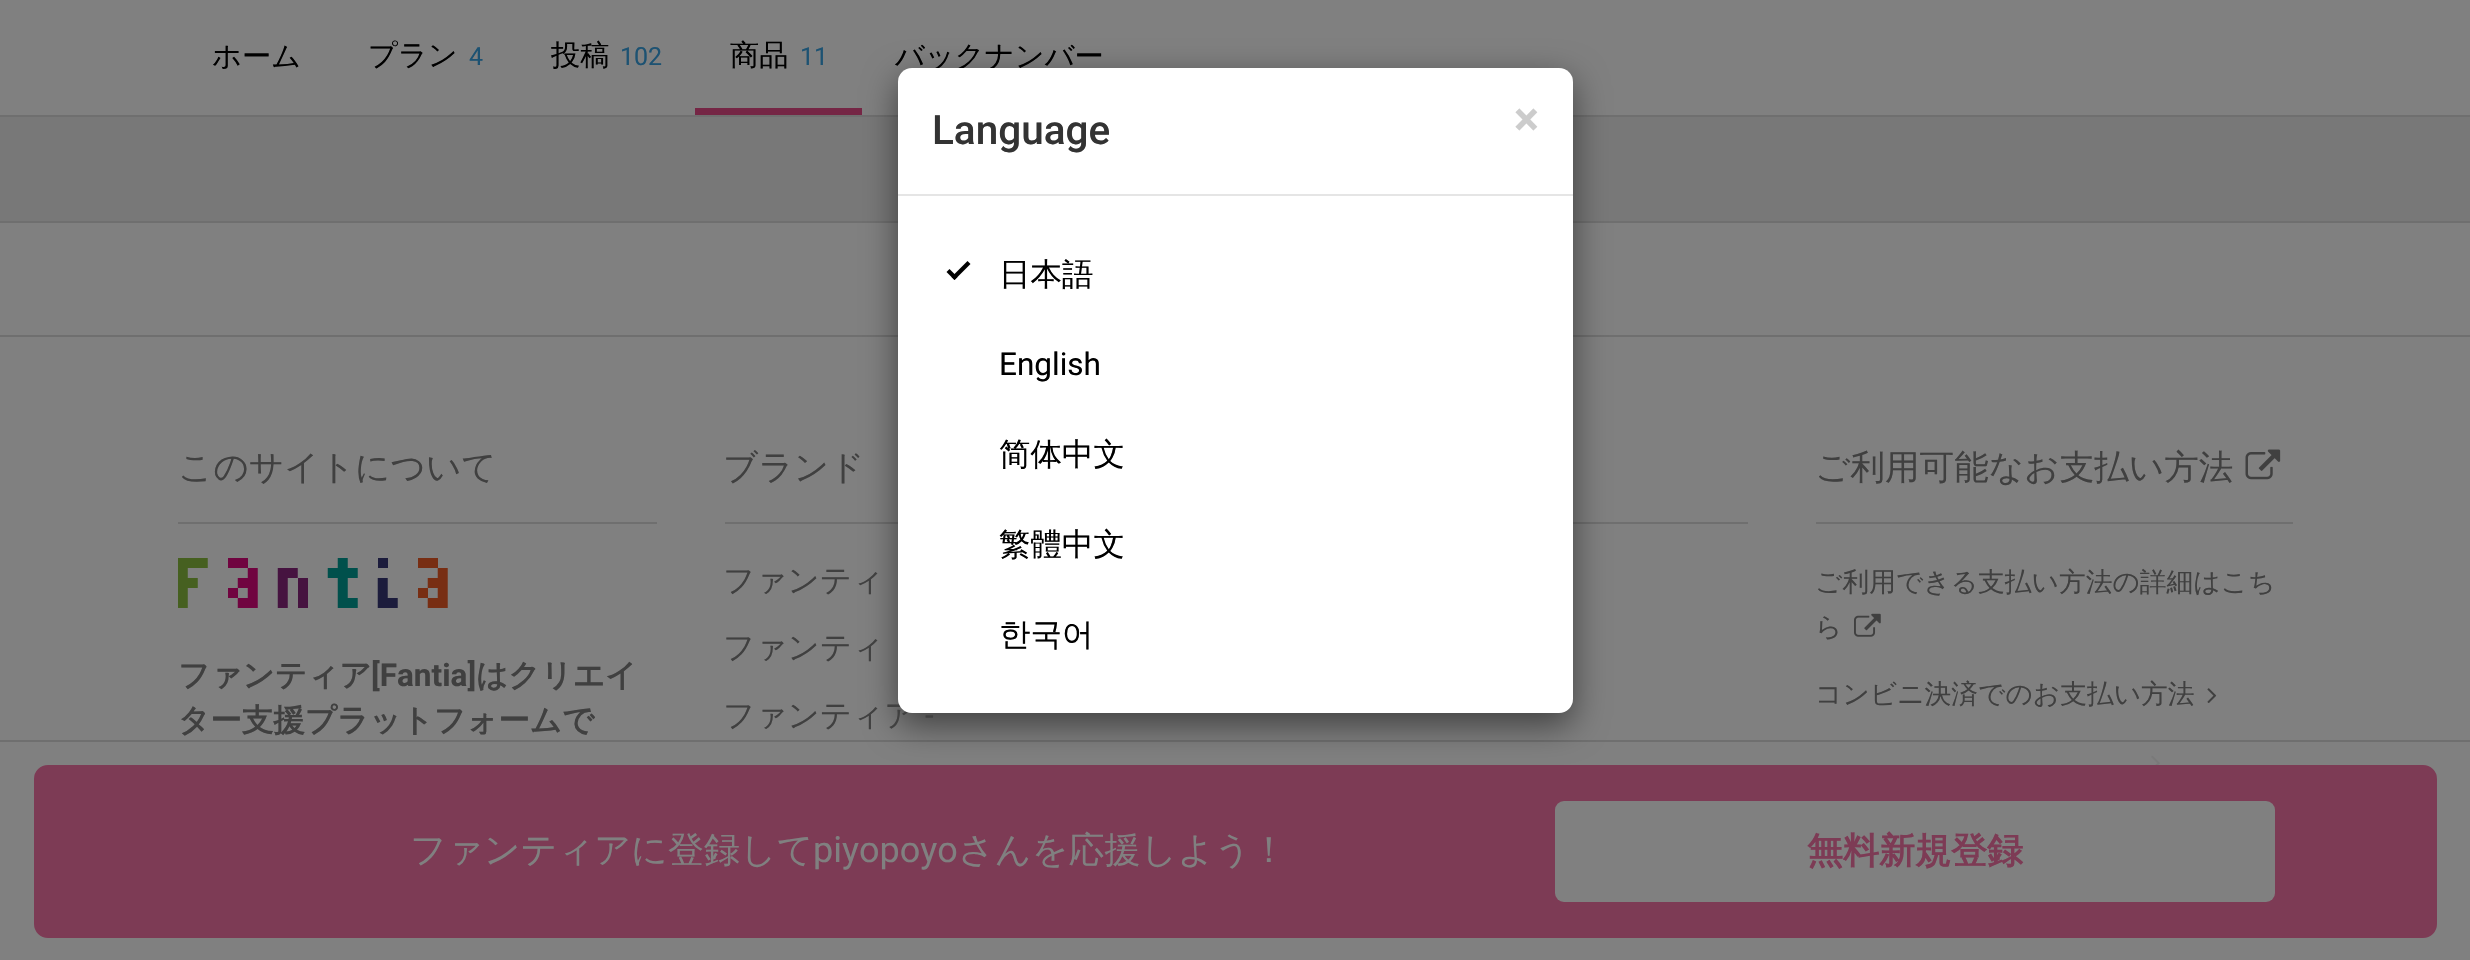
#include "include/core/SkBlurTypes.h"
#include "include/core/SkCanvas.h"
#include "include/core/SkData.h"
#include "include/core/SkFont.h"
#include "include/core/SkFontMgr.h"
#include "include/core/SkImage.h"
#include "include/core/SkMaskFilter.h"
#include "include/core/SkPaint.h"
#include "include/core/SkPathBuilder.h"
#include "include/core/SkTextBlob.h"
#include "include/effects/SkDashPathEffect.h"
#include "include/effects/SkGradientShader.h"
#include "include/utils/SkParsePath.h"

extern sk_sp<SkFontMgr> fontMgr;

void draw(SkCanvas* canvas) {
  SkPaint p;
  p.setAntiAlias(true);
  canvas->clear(SkColorSetRGB(120, 120, 120));
  p.setColor(SkColorSetRGB(128, 128, 128));
  canvas->drawRect(SkRect::MakeLTRB(0, 0, 2470, 115), p);
  p.setColor(SkColorSetRGB(111, 111, 111));
  canvas->drawRect(SkRect::MakeLTRB(0, 115, 2470, 117), p);
  p.setColor(SkColorSetRGB(117, 38, 69));
  canvas->drawRect(SkRect::MakeLTRB(695, 108, 862, 115), p);
  p.setColor(SkColorSetRGB(111, 111, 111));
  canvas->drawRect(SkRect::MakeLTRB(0, 740, 2470, 742), p);
  p.setColor(SkColorSetRGB(128, 128, 128));
  canvas->drawRect(SkRect::MakeLTRB(0, 742, 2470, 960), p);
  p.setColor(SkColorSetRGB(125, 59, 85));
  canvas->drawRoundRect(SkRect::MakeLTRB(35, 766, 2436, 937), 13, 13, p);
  p.setStyle(SkPaint::kStroke_Style);
  p.setStrokeWidth(2);
  canvas->drawRoundRect(SkRect::MakeLTRB(35, 766, 2436, 937), 13, 13, p);
  p.setStyle(SkPaint::kFill_Style);
  p.setColor(SkColorSetRGB(128, 128, 128));
  canvas->drawRoundRect(SkRect::MakeLTRB(1555, 801, 2275, 902), 9, 9, p);
  canvas->drawRect(SkRect::MakeLTRB(0, 223, 2470, 335), p);
  p.setColor(SkColorSetRGB(111, 111, 111));
  canvas->drawRect(SkRect::MakeLTRB(0, 221, 2470, 223), p);
  p.setColor(SkColorSetRGB(128, 128, 128));
  canvas->drawRect(SkRect::MakeLTRB(0, 337, 2470, 740), p);
  p.setColor(SkColorSetRGB(111, 111, 111));
  canvas->drawRect(SkRect::MakeLTRB(0, 335, 2470, 337), p);
  canvas->drawRect(SkRect::MakeLTRB(725, 522, 898, 524), p);
  canvas->drawRect(SkRect::MakeLTRB(1573, 522, 1748, 524), p);
  p.setColor(SkColorSetARGB(128, 0, 0, 0));
  p.setMaskFilter(SkMaskFilter::MakeBlur(kNormal_SkBlurStyle, 17));
  canvas->drawRoundRect(SkRect::MakeLTRB(898, 79, 1573, 725), 14, 14, p);
  p.setMaskFilter(nullptr);
  p.setColor(SkColorSetRGB(111, 111, 111));
  canvas->drawRect(SkRect::MakeLTRB(178, 522, 657, 524), p);
  canvas->drawImageRect(SkImages::DeferredFromEncodedData(SkData::MakeFromFileName("images/1.png")), SkRect::MakeLTRB(178, 558, 448, 608), SkSamplingOptions());
  canvas->drawRect(SkRect::MakeLTRB(1816, 522, 2293, 524), p);
  canvas->drawImageRect(SkImages::DeferredFromEncodedData(SkData::MakeFromFileName("images/2.png")), SkRect::MakeLTRB(2245, 449, 2281, 480), SkSamplingOptions());
  canvas->drawImageRect(SkImages::DeferredFromEncodedData(SkData::MakeFromFileName("images/3.png")), SkRect::MakeLTRB(1854, 613, 1881, 637), SkSamplingOptions());
  canvas->drawImageRect(SkImages::DeferredFromEncodedData(SkData::MakeFromFileName("images/4.png")), SkRect::MakeLTRB(2207, 688, 2217, 703), SkSamplingOptions());
  canvas->drawImageRect(SkImages::DeferredFromEncodedData(SkData::MakeFromFileName("images/5.png")), SkRect::MakeLTRB(2151, 755, 2160, 765), SkSamplingOptions());
  SkFont font1(fontMgr->matchFamilyStyle("WenQuanYi Zen Hei", SkFontStyle(500, SkFontStyle::kNormal_Width, SkFontStyle::kUpright_Slant)), 29.25f);
  font1.setSubpixel(true);
  p.setColor(SK_ColorBLACK);
  canvas->drawString("ホーム", 212, 66, font1, p);
  canvas->drawString("プラン", 368, 65, font1, p);
  SkFont font2(fontMgr->matchFamilyStyle("Roboto", SkFontStyle::Normal()), 25);
  font2.setSubpixel(true);
  p.setColor(SkColorSetRGB(29, 82, 114));
  canvas->drawString("4", 469, 65, font2, p);
  p.setColor(SK_ColorBLACK);
  canvas->drawString("投稿", 551, 65, font1, p);
  p.setColor(SkColorSetRGB(29, 82, 114));
  canvas->drawString("102", 620, 65, font2, p);
  p.setColor(SK_ColorBLACK);
  canvas->drawString("商品", 730, 65, font1, p);
  p.setColor(SkColorSetRGB(29, 82, 114));
  canvas->drawString("11", 800, 65, font2, p);
  p.setColor(SK_ColorBLACK);
  canvas->drawString("バックナンバー", 895, 66, font1, p);
  SkFont font3(fontMgr->matchFamilyStyle("WenQuanYi Zen Hei", SkFontStyle(500, SkFontStyle::kNormal_Width, SkFontStyle::kUpright_Slant)), 36);
  font3.setSubpixel(true);
  p.setColor(SkColorSetRGB(128, 128, 128));
  canvas->drawString("ファンティアに登録して", 410, 862, font3, p);
  SkFont font4(fontMgr->matchFamilyStyle("Roboto", SkFontStyle::Normal()), 36);
  font4.setSubpixel(true);
  canvas->drawString("piyopoyo", 813, 862, font4, p);
  canvas->drawString("さんを応援しよう！", 958, 862, font3, p);
  SkFont font5(fontMgr->matchFamilyStyle("WenQuanYi Zen Hei", SkFontStyle::Bold()), 36);
  font5.setSubpixel(true);
  p.setColor(SkColorSetRGB(125, 59, 85));
  canvas->drawString("無料新規登録", 1807, 863, font5, p);
  SkFont font6(fontMgr->matchFamilyStyle("WenQuanYi Zen Hei", SkFontStyle(500, SkFontStyle::kNormal_Width, SkFontStyle::kUpright_Slant)), 34.6f);
  font6.setSubpixel(true);
  p.setColor(SkColorSetRGB(64, 64, 64));
  canvas->drawString("このサイトについて", 178, 479, font6, p);
  SkFont font7(fontMgr->matchFamilyStyle("WenQuanYi Zen Hei", SkFontStyle::Bold()), 31.5f);
  font7.setSubpixel(true);
  canvas->drawString("ファンティア", 178, 686, font7, p);
  SkFont font8(fontMgr->matchFamilyStyle("Roboto", SkFontStyle::Bold()), 31.5f);
  font8.setSubpixel(true);
  canvas->drawString("[Fantia]", 371, 686, font8, p);
  canvas->drawString("はクリエイ", 476, 686, font7, p);
  canvas->drawString("ター支援プラットフォームで", 178, 731, font7, p);
  canvas->drawString("ブランド", 723, 479, font6, p);
  SkFont font9(fontMgr->matchFamilyStyle("WenQuanYi Zen Hei", SkFontStyle(500, SkFontStyle::kNormal_Width, SkFontStyle::kUpright_Slant)), 31.5f);
  font9.setSubpixel(true);
  canvas->drawString("ファンティ", 723, 591, font9, p);
  canvas->drawString("ファンティ", 723, 658, font9, p);
  canvas->drawString("ファンティア", 723, 726, font9, p);
  p.setColor(SK_ColorWHITE);
  canvas->drawRoundRect(SkRect::MakeLTRB(898, 68, 1573, 713), 14, 14, p);
  p.setColor(SK_ColorBLACK);
  canvas->drawString("한국어", 999, 645, font9, p);
  canvas->drawString("繁體中文", 999, 555, font9, p);
  canvas->drawString("简体中文", 999, 465, font9, p);
  SkFont font10(fontMgr->matchFamilyStyle("Roboto", SkFontStyle::Normal()), 31.5f);
  font10.setSubpixel(true);
  canvas->drawString("English", 999, 375, font10, p);
  canvas->drawPath(SkPathBuilder().moveTo(951.5f, 277).lineTo(967.5f, 261).lineTo(970.5f, 264).lineTo(954.5f, 280).close().detach(), p);
  canvas->drawPath(SkPathBuilder().moveTo(946.5f, 272).lineTo(949.5f, 269).lineTo(957.5f, 277).lineTo(954.5f, 280).close().detach(), p);
  canvas->drawString("日本語", 999, 285, font9, p);
  SkFont font11(fontMgr->matchFamilyStyle("Roboto", SkFontStyle::Bold()), 47);
  font11.setSubpixel(true);
  p.setColor(SkColorSetRGB(204, 204, 204));
  canvas->drawString("×", 1514, 135, font11, p);
  SkFont font12(fontMgr->matchFamilyStyle("Roboto", SkFontStyle(500, SkFontStyle::kNormal_Width, SkFontStyle::kUpright_Slant)), 40.5f);
  font12.setSubpixel(true);
  p.setColor(SkColorSetRGB(51, 51, 51));
  canvas->drawString("Language", 932, 144, font12, p);
  p.setColor(SkColorSetRGB(229, 229, 229));
  canvas->drawRect(SkRect::MakeLTRB(898, 194, 1573, 196), p);
  p.setColor(SkColorSetRGB(64, 64, 64));
  canvas->drawString("-", 925, 726, font10, p);
  canvas->drawString("ご利用可能なお支払い方法", 1815, 479, font6, p);
  SkFont font13(fontMgr->matchFamilyStyle("WenQuanYi Zen Hei", SkFontStyle(500, SkFontStyle::kNormal_Width, SkFontStyle::kUpright_Slant)), 26.75f);
  font13.setSubpixel(true);
  canvas->drawString("ご利用できる支払い方法の詳細はこち", 1815, 591, font13, p);
  canvas->drawString("ら", 1815, 636, font13, p);
  canvas->drawString("コンビニ決済でのお支払い方法", 1815, 703, font13, p);
}
